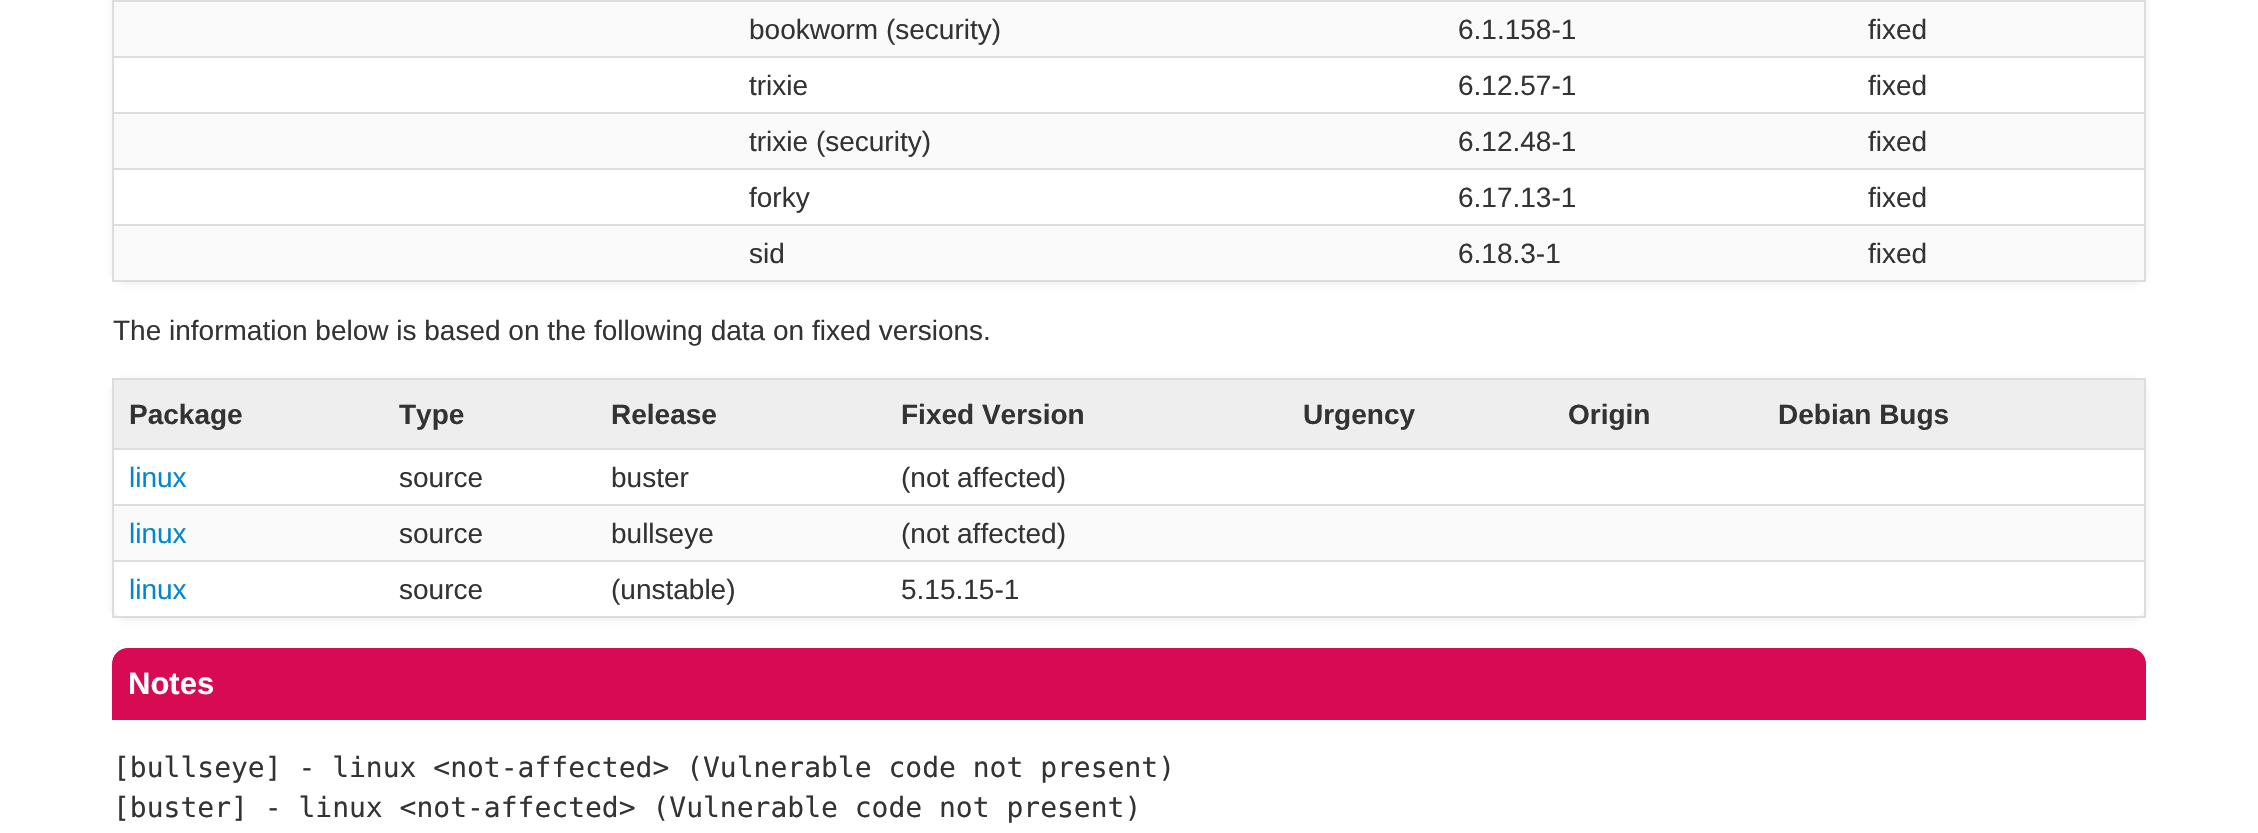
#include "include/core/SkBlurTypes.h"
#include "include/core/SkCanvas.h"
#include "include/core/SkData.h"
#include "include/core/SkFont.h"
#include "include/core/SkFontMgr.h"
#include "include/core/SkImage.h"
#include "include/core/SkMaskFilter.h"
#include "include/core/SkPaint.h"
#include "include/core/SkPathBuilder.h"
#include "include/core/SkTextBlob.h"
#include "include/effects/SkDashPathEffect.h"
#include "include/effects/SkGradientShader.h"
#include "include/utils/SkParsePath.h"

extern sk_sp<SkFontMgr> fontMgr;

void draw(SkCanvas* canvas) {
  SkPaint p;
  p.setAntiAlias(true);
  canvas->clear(SK_ColorWHITE);
  canvas->save();
  canvas->clipPath(SkPathBuilder(SkPathFillType::kEvenOdd).moveTo(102, 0).lineTo(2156, 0).lineTo(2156, 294).lineTo(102, 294).close().moveTo(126, -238).lineTo(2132, -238).cubicTo(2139.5f, -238, 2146, -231.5f, 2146, -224).lineTo(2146, 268).cubicTo(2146, 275.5f, 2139.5f, 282, 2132, 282).lineTo(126, 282).cubicTo(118.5f, 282, 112, 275.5f, 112, 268).lineTo(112, -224).cubicTo(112, -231.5f, 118.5f, -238, 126, -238).close().detach(), true);
  p.setColor(SkColorSetRGB(238, 238, 238));
  p.setMaskFilter(SkMaskFilter::MakeBlur(kNormal_SkBlurStyle, 3));
  canvas->drawRoundRect(SkRect::MakeLTRB(112, -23, 2146, 284), 14, 14, p);
  p.setMaskFilter(nullptr);
  canvas->restore();
  p.setColor(SkColorSetRGB(221, 221, 221));
  canvas->drawRect(SkRect::MakeLTRB(2144, 0, 2146, 282), p);
  canvas->drawRect(SkRect::MakeLTRB(112, 280, 2146, 282), p);
  canvas->drawRect(SkRect::MakeLTRB(112, 0, 114, 282), p);
  canvas->drawRect(SkRect::MakeLTRB(112, 0, 2146, 2), p);
  p.setColor(SkColorSetRGB(250, 250, 250));
  canvas->drawRect(SkRect::MakeLTRB(114, 2, 2144, 56), p);
  p.setColor(SkColorSetRGB(221, 221, 221));
  canvas->drawRect(SkRect::MakeLTRB(112, 56, 2146, 58), p);
  canvas->drawRect(SkRect::MakeLTRB(112, 112, 2146, 114), p);
  p.setColor(SkColorSetRGB(250, 250, 250));
  canvas->drawRect(SkRect::MakeLTRB(114, 114, 2144, 168), p);
  p.setColor(SkColorSetRGB(221, 221, 221));
  canvas->drawRect(SkRect::MakeLTRB(112, 168, 2146, 170), p);
  canvas->drawRect(SkRect::MakeLTRB(112, 224, 2146, 226), p);
  p.setColor(SkColorSetRGB(250, 250, 250));
  canvas->drawRect(SkRect::MakeLTRB(114, 226, 2144, 280), p);
  canvas->save();
  canvas->clipPath(SkPathBuilder(SkPathFillType::kEvenOdd).moveTo(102, 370).lineTo(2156, 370).lineTo(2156, 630).lineTo(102, 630).close().moveTo(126, 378).lineTo(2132, 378).cubicTo(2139.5f, 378, 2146, 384.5f, 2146, 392).lineTo(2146, 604).cubicTo(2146, 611.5f, 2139.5f, 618, 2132, 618).lineTo(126, 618).cubicTo(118.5f, 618, 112, 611.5f, 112, 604).lineTo(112, 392).cubicTo(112, 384.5f, 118.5f, 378, 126, 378).close().detach(), true);
  p.setColor(SkColorSetRGB(238, 238, 238));
  p.setMaskFilter(SkMaskFilter::MakeBlur(kNormal_SkBlurStyle, 3));
  canvas->drawRoundRect(SkRect::MakeLTRB(112, 380, 2146, 620), 14, 14, p);
  p.setMaskFilter(nullptr);
  canvas->restore();
  p.setColor(SkColorSetRGB(221, 221, 221));
  canvas->drawRect(SkRect::MakeLTRB(112, 378, 2146, 380), p);
  canvas->drawRect(SkRect::MakeLTRB(2144, 378, 2146, 618), p);
  canvas->drawRect(SkRect::MakeLTRB(112, 616, 2146, 618), p);
  canvas->drawRect(SkRect::MakeLTRB(112, 378, 114, 618), p);
  p.setColor(SkColorSetRGB(238, 238, 238));
  canvas->drawRect(SkRect::MakeLTRB(114, 380, 2144, 448), p);
  p.setColor(SkColorSetRGB(221, 221, 221));
  canvas->drawRect(SkRect::MakeLTRB(112, 448, 2146, 450), p);
  canvas->drawRect(SkRect::MakeLTRB(112, 504, 2146, 506), p);
  p.setColor(SkColorSetRGB(250, 250, 250));
  canvas->drawRect(SkRect::MakeLTRB(114, 506, 2144, 560), p);
  p.setColor(SkColorSetRGB(221, 221, 221));
  canvas->drawRect(SkRect::MakeLTRB(112, 560, 2146, 562), p);
  p.setColor(SkColorSetRGB(215, 10, 83));
  canvas->drawPath(SkPathBuilder().moveTo(128, 648).lineTo(2130, 648).cubicTo(2139, 648, 2146, 655, 2146, 664).lineTo(2146, 720).lineTo(112, 720).lineTo(112, 664).cubicTo(112, 655, 119, 648, 128, 648).close().detach(), p);
  SkFont font1(fontMgr->matchFamilyStyle("Liberation Sans", SkFontStyle::Normal()), 28);
  font1.setSubpixel(true);
  p.setColor(SkColorSetRGB(51, 51, 51));
  canvas->drawString("bookworm (security)", 749, 39, font1, p);
  canvas->drawString("6.1.158-1", 1458, 39, font1, p);
  canvas->drawString("fixed", 1868, 39, font1, p);
  canvas->drawString("trixie", 749, 95, font1, p);
  canvas->drawString("6.12.57-1", 1458, 95, font1, p);
  canvas->drawString("fixed", 1868, 95, font1, p);
  canvas->drawString("trixie (security)", 749, 151, font1, p);
  canvas->drawString("6.12.48-1", 1458, 151, font1, p);
  canvas->drawString("fixed", 1868, 151, font1, p);
  canvas->drawString("forky", 749, 207, font1, p);
  canvas->drawString("6.17.13-1", 1458, 207, font1, p);
  canvas->drawString("fixed", 1868, 207, font1, p);
  canvas->drawString("sid", 749, 263, font1, p);
  canvas->drawString("6.18.3-1", 1458, 263, font1, p);
  canvas->drawString("fixed", 1868, 263, font1, p);
  canvas->drawString("The information below is based on the following data on fixed versions.", 113, 340, font1, p);
  SkFont font2(fontMgr->matchFamilyStyle("Liberation Sans", SkFontStyle::Bold()), 28);
  font2.setSubpixel(true);
  canvas->drawString("Package", 129, 424, font2, p);
  canvas->drawString("Type", 399, 424, font2, p);
  canvas->drawString("Release", 611, 424, font2, p);
  canvas->drawString("Fixed Version", 901, 424, font2, p);
  canvas->drawString("Urgency", 1303, 424, font2, p);
  canvas->drawString("Origin", 1568, 424, font2, p);
  canvas->drawString("Debian Bugs", 1778, 424, font2, p);
  p.setColor(SkColorSetRGB(0, 136, 204));
  canvas->drawString("linux", 129, 487, font1, p);
  p.setColor(SkColorSetRGB(51, 51, 51));
  canvas->drawString("source", 399, 487, font1, p);
  canvas->drawString("buster", 611, 487, font1, p);
  canvas->drawString("(not affected)", 901, 487, font1, p);
  p.setColor(SkColorSetRGB(0, 136, 204));
  canvas->drawString("linux", 129, 543, font1, p);
  p.setColor(SkColorSetRGB(51, 51, 51));
  canvas->drawString("source", 399, 543, font1, p);
  canvas->drawString("bullseye", 611, 543, font1, p);
  canvas->drawString("(not affected)", 901, 543, font1, p);
  p.setColor(SkColorSetRGB(0, 136, 204));
  canvas->drawString("linux", 129, 599, font1, p);
  p.setColor(SkColorSetRGB(51, 51, 51));
  canvas->drawString("source", 399, 599, font1, p);
  canvas->drawString("(unstable)", 611, 599, font1, p);
  canvas->drawString("5.15.15-1", 901, 599, font1, p);
  SkFont font3(fontMgr->matchFamilyStyle("Liberation Sans", SkFontStyle::Bold()), 31);
  font3.setSubpixel(true);
  p.setColor(SK_ColorWHITE);
  canvas->drawString("Notes", 128, 694, font3, p);
  SkFont font4(fontMgr->matchFamilyStyle("DejaVu Sans Mono", SkFontStyle::Normal()), 28);
  font4.setSubpixel(true);
  p.setColor(SkColorSetRGB(51, 51, 51));
  canvas->drawString("[bullseye] - linux <not-affected> (Vulnerable code not present)", 113, 777, font4, p);
  canvas->drawString("[buster] - linux <not-affected> (Vulnerable code not present)", 113, 817, font4, p);
}
